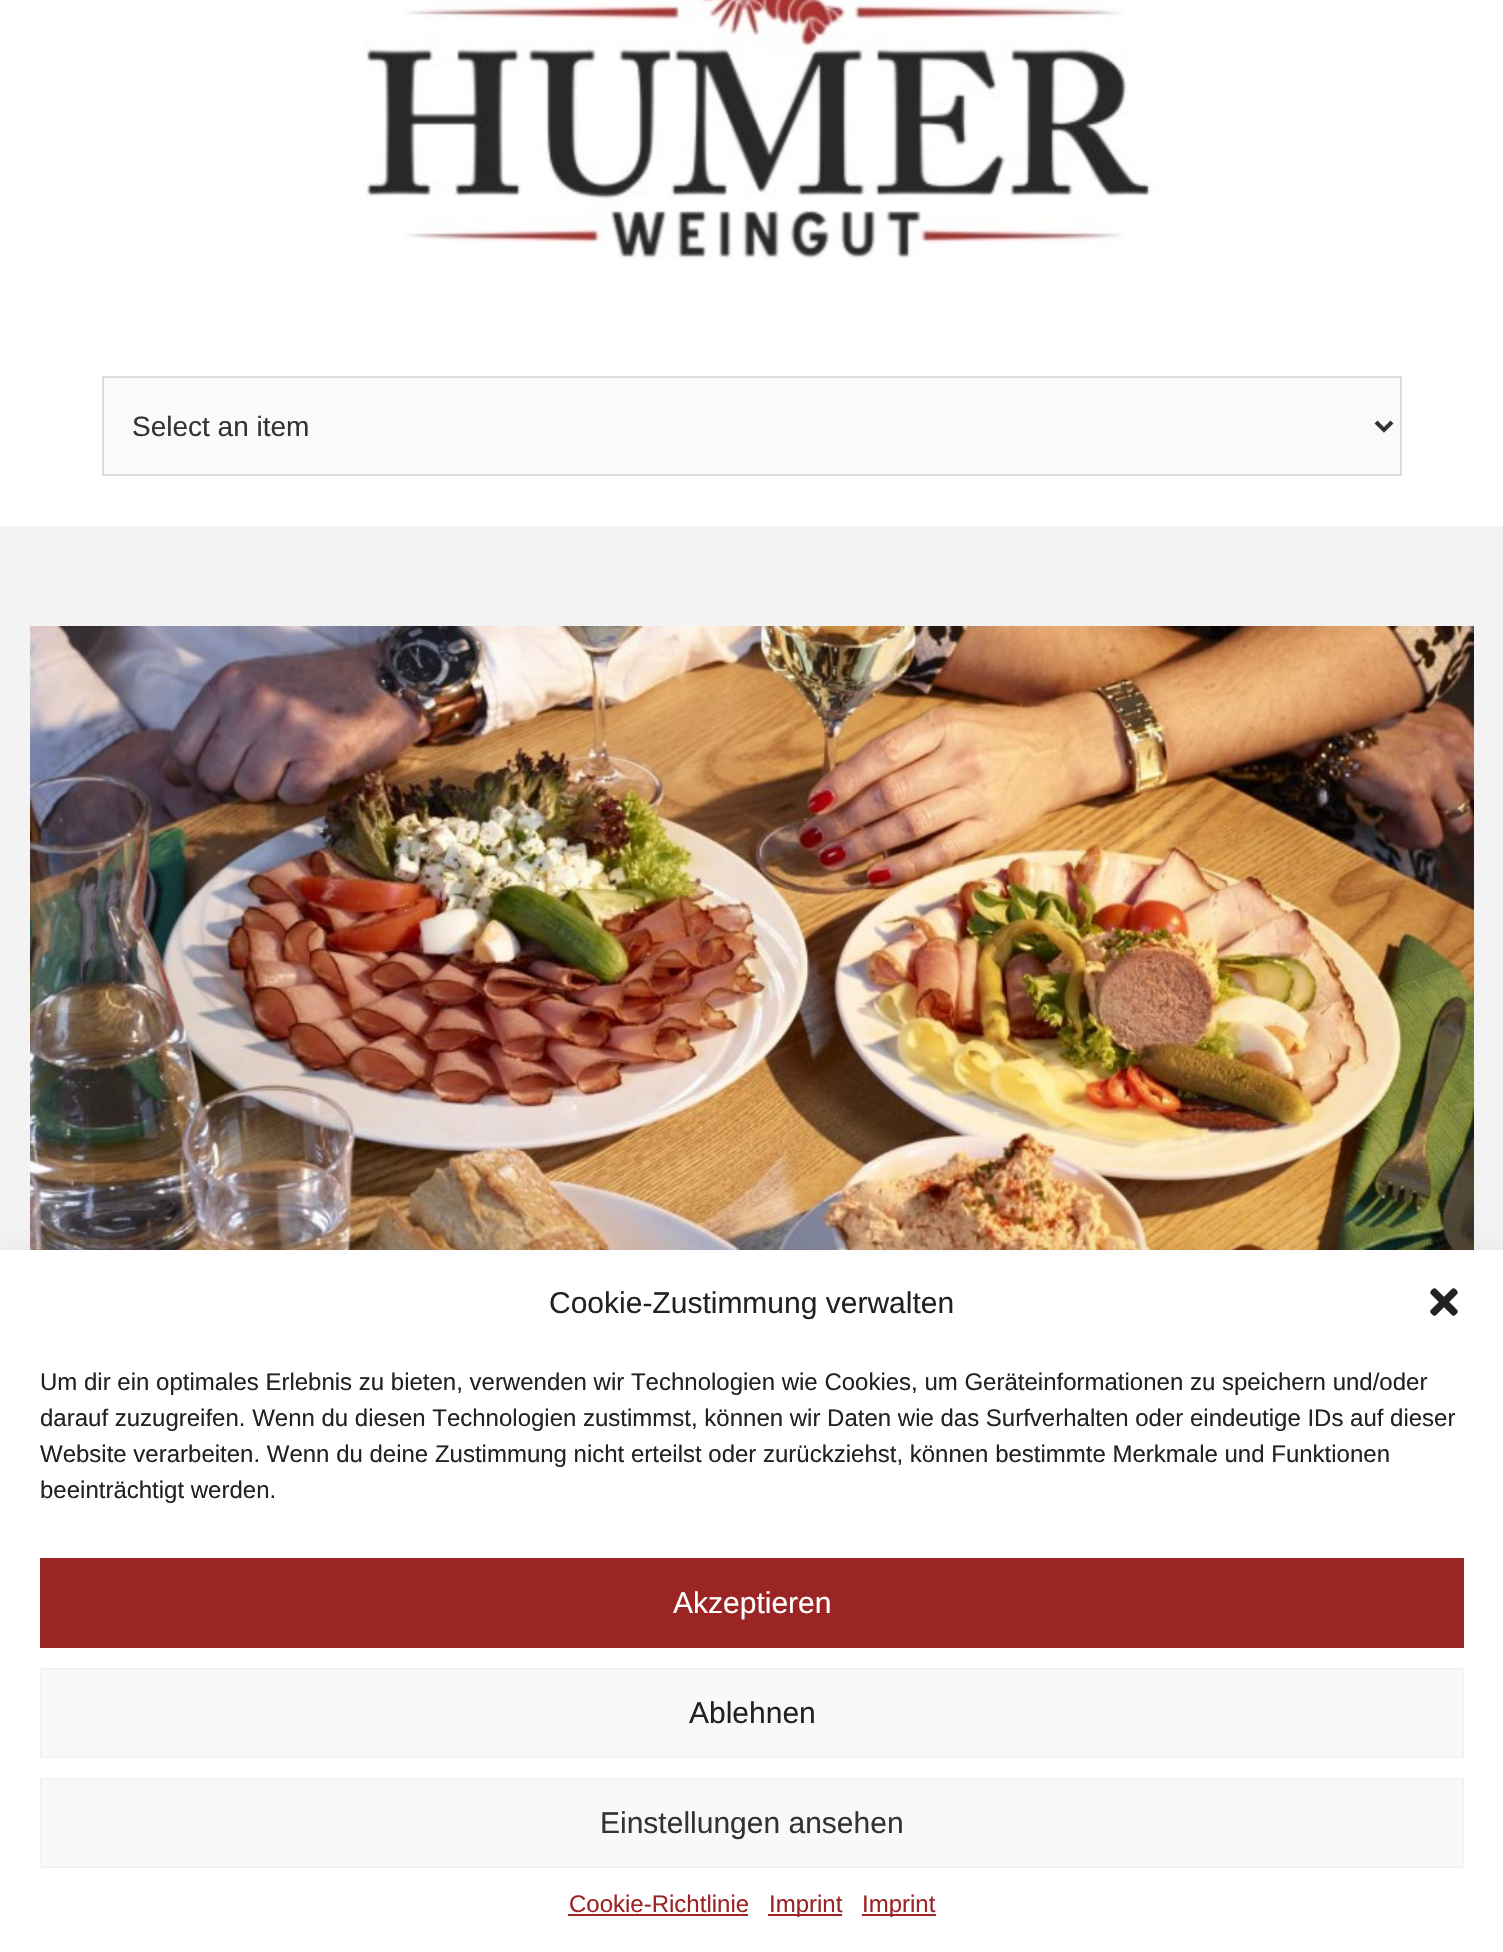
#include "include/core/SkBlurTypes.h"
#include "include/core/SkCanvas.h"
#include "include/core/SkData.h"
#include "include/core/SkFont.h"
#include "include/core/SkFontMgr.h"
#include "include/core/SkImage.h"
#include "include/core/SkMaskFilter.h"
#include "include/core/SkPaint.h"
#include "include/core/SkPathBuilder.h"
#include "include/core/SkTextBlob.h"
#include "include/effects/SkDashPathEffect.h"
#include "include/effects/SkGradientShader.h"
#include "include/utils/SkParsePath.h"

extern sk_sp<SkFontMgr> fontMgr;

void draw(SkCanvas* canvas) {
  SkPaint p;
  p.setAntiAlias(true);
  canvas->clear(SkColorSetRGB(243, 243, 243));
  p.setColor(SK_ColorWHITE);
  canvas->drawRect(SkRect::MakeLTRB(0, 0, 1503, 526), p);
  canvas->drawImageRect(SkImages::DeferredFromEncodedData(SkData::MakeFromFileName("images/1.png")), SkRect::MakeLTRB(365, 0, 1158, 260), SkSamplingOptions());
  p.setColor(SkColorSetRGB(250, 250, 250));
  canvas->drawRect(SkRect::MakeLTRB(103, 377, 1401, 475), p);
  p.setStyle(SkPaint::kStroke_Style);
  p.setStrokeWidth(2);
  p.setColor(SkColorSetRGB(221, 221, 221));
  canvas->drawRect(SkRect::MakeLTRB(103, 377, 1401, 475), p);
  p.setStrokeWidth(4);
  p.setColor(SkColorSetRGB(51, 51, 51));
  canvas->drawPath(SkPathBuilder().moveTo(1376, 422).lineTo(1384, 430).lineTo(1392, 422).detach(), p);
  canvas->drawImageRect(SkImages::DeferredFromEncodedData(SkData::MakeFromFileName("images/2.png")), SkRect::MakeLTRB(30, 626, 1474, 1250), SkSamplingOptions());
  p.setStyle(SkPaint::kFill_Style);
  p.setColor(SkColorSetARGB(48, 0, 0, 0));
  p.setMaskFilter(SkMaskFilter::MakeBlur(kNormal_SkBlurStyle, 20));
  canvas->drawRect(SkRect::MakeLTRB(0, 1270, 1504, 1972), p);
  p.setMaskFilter(nullptr);
  p.setColor(SK_ColorWHITE);
  canvas->drawRect(SkRect::MakeLTRB(0, 1250, 1503, 1952), p);
  canvas->drawImageRect(SkImages::DeferredFromEncodedData(SkData::MakeFromFileName("images/3.png")), SkRect::MakeLTRB(1430, 1288, 1458, 1316), SkSamplingOptions());
  p.setColor(SkColorSetRGB(155, 36, 36));
  canvas->drawRect(SkRect::MakeLTRB(40, 1558, 1464, 1648), p);
  p.setColor(SkColorSetRGB(249, 249, 249));
  canvas->drawRect(SkRect::MakeLTRB(41, 1669, 1463, 1757), p);
  p.setStyle(SkPaint::kStroke_Style);
  p.setStrokeWidth(2);
  p.setColor(SkColorSetRGB(242, 242, 242));
  canvas->drawRect(SkRect::MakeLTRB(41, 1669, 1463, 1757), p);
  p.setStyle(SkPaint::kFill_Style);
  p.setColor(SkColorSetRGB(249, 249, 249));
  canvas->drawRect(SkRect::MakeLTRB(41, 1779, 1463, 1867), p);
  p.setStyle(SkPaint::kStroke_Style);
  p.setColor(SkColorSetRGB(242, 242, 242));
  canvas->drawRect(SkRect::MakeLTRB(41, 1779, 1463, 1867), p);
  p.setStyle(SkPaint::kFill_Style);
  p.setColor(SkColorSetRGB(155, 36, 36));
  canvas->drawRect(SkRect::MakeLTRB(568, 1914, 748, 1916), p);
  canvas->drawRect(SkRect::MakeLTRB(768, 1914, 842, 1916), p);
  canvas->drawRect(SkRect::MakeLTRB(862, 1914, 936, 1916), p);
  SkFont font1(fontMgr->matchFamilyStyle("Liberation Sans", SkFontStyle::Normal()), 28);
  font1.setSubpixel(true);
  p.setColor(SkColorSetRGB(51, 51, 51));
  canvas->drawString("Select an item", 132, 436, font1, p);
  SkFont font2(fontMgr->matchFamilyStyle("Liberation Sans", SkFontStyle::Normal()), 30);
  font2.setSubpixel(true);
  p.setColor(SkColorSetRGB(34, 34, 34));
  canvas->drawString("Cookie-Zustimmung verwalten", 549, 1313, font2, p);
  SkFont font3(fontMgr->matchFamilyStyle("Liberation Sans", SkFontStyle::Normal()), 24);
  font3.setSubpixel(true);
  canvas->drawString("Um dir ein optimales Erlebnis zu bieten, verwenden wir Technologien wie Cookies, um Geräteinformationen zu speichern und/oder", 40, 1390, font3, p);
  canvas->drawString("darauf zuzugreifen. Wenn du diesen Technologien zustimmst, können wir Daten wie das Surfverhalten oder eindeutige IDs auf dieser", 40, 1426, font3, p);
  canvas->drawString("Website verarbeiten. Wenn du deine Zustimmung nicht erteilst oder zurückziehst, können bestimmte Merkmale und Funktionen", 40, 1462, font3, p);
  canvas->drawString("beeinträchtigt werden.", 40, 1498, font3, p);
  p.setColor(SK_ColorWHITE);
  canvas->drawString("Akzeptieren", 673, 1613, font2, p);
  p.setColor(SkColorSetRGB(34, 34, 34));
  canvas->drawString("Ablehnen", 689, 1723, font2, p);
  p.setColor(SkColorSetRGB(51, 51, 51));
  canvas->drawString("Einstellungen ansehen", 600, 1833, font2, p);
  p.setColor(SkColorSetRGB(155, 36, 36));
  canvas->drawString("Cookie-Richtlinie", 569, 1912, font3, p);
  canvas->drawString("Imprint", 769, 1912, font3, p);
  canvas->drawString("Imprint", 862, 1912, font3, p);
}
